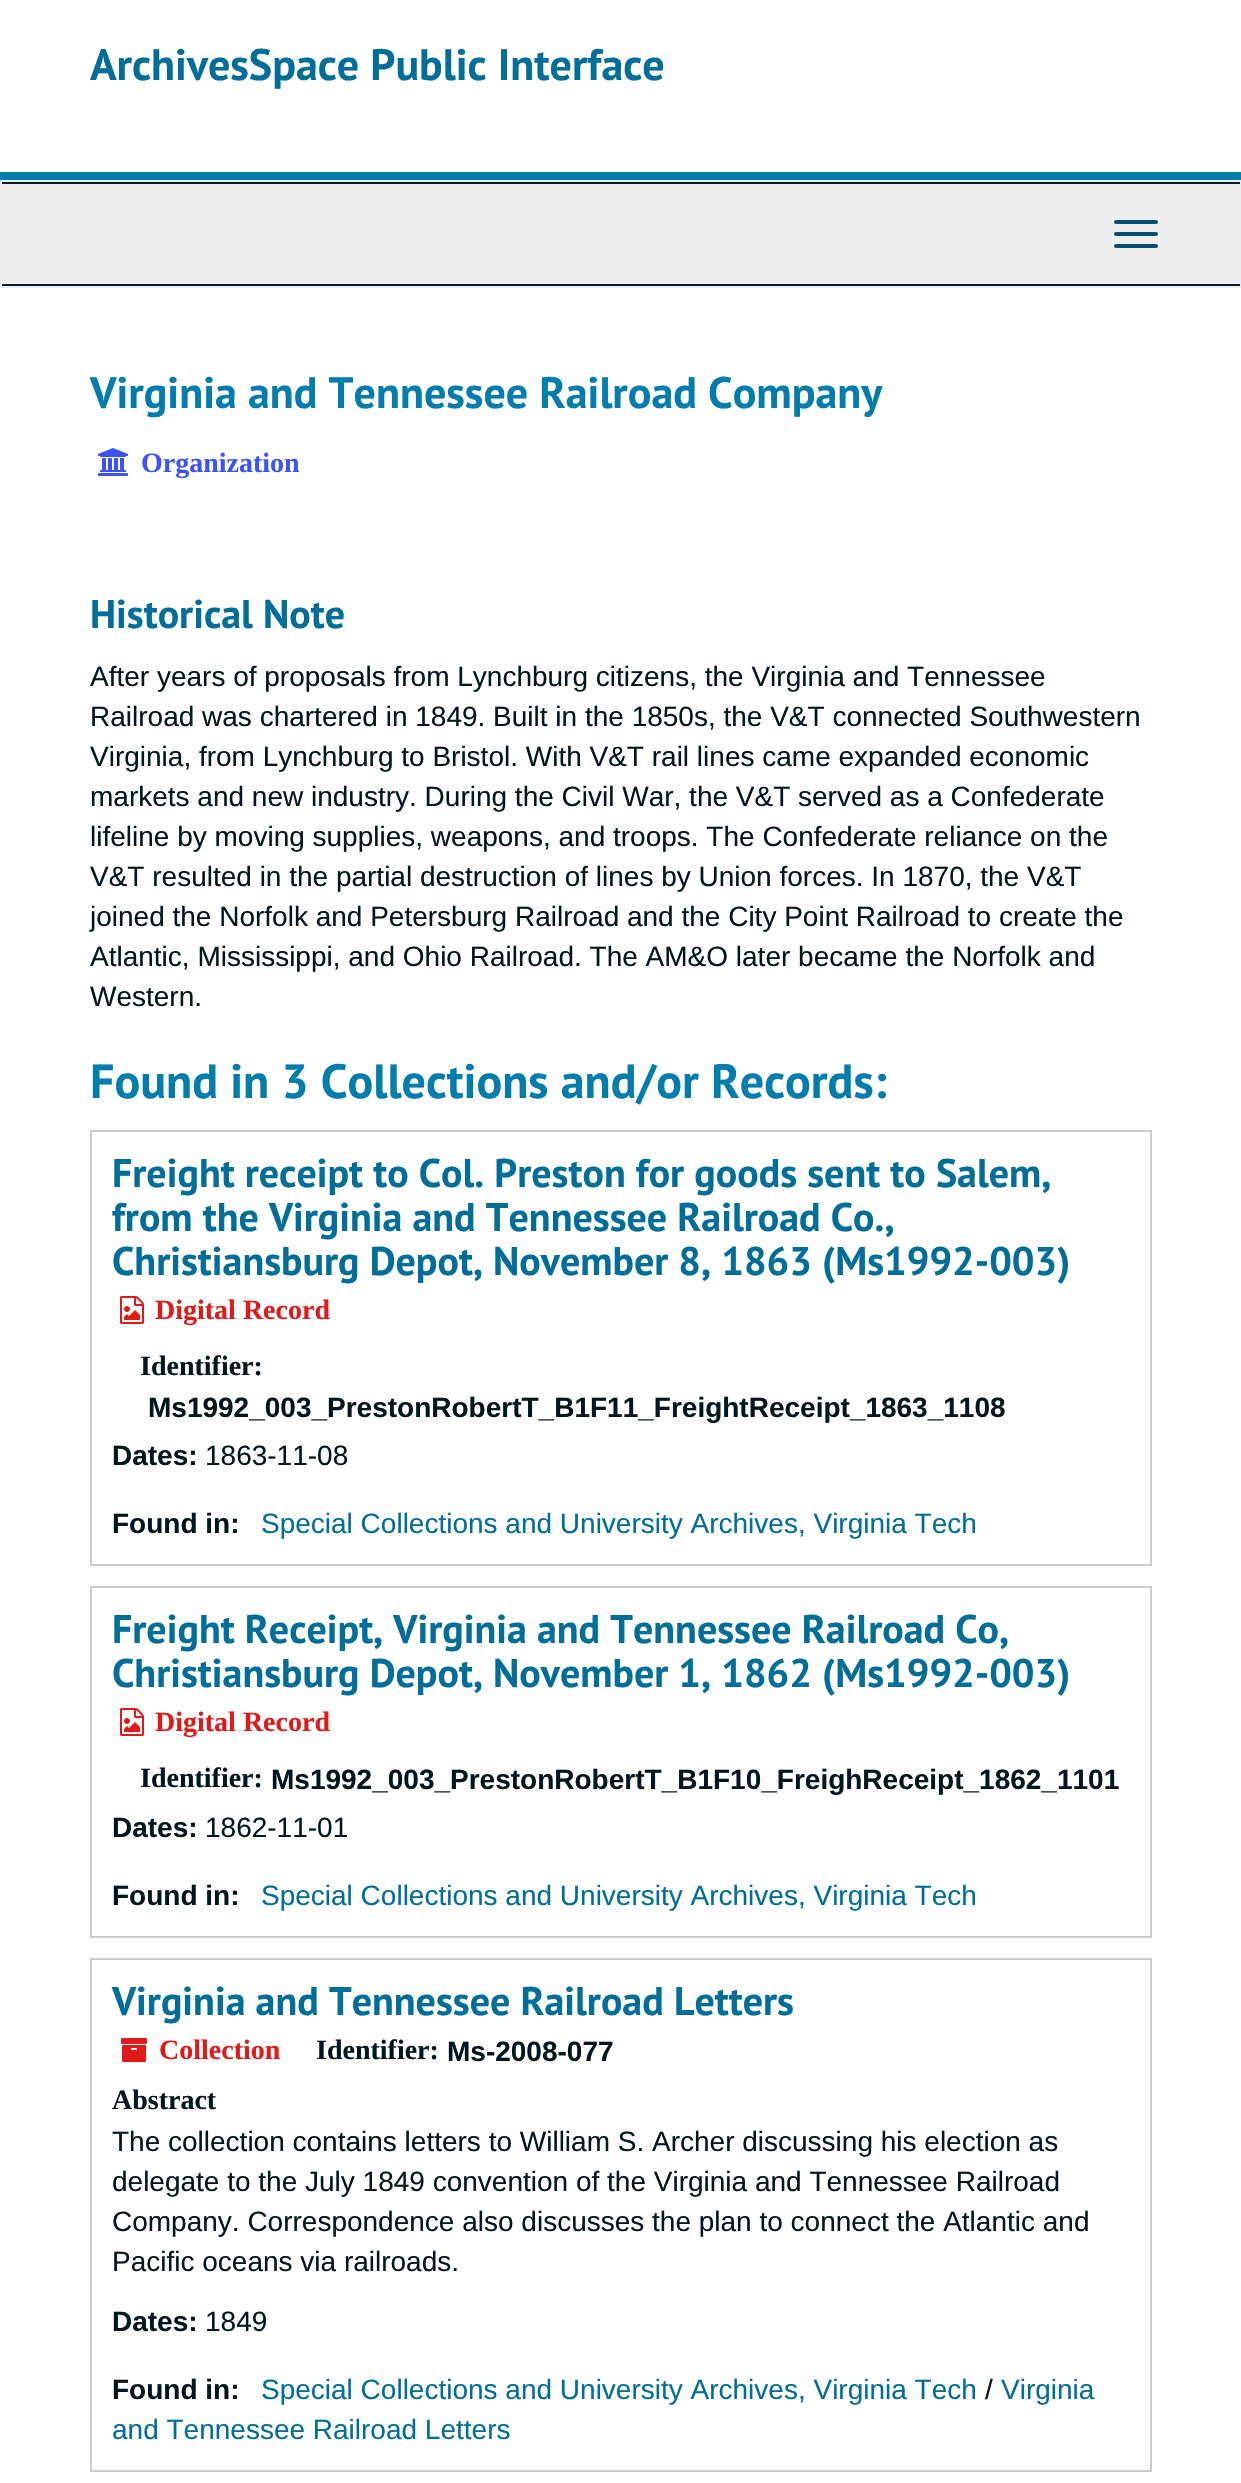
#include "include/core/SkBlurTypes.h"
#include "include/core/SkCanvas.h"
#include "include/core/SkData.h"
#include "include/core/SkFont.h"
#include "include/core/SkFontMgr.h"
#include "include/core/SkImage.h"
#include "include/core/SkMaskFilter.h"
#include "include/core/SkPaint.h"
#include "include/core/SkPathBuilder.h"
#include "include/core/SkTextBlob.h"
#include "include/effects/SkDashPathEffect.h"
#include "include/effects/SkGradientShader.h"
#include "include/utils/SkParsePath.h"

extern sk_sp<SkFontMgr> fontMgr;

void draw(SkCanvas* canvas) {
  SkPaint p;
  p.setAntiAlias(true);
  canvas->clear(SK_ColorWHITE);
  p.setColor(SkColorSetRGB(0, 124, 173));
  canvas->drawRect(SkRect::MakeLTRB(0, 172, 1241, 180), p);
  p.setColor(SkColorSetRGB(238, 238, 238));
  canvas->drawRect(SkRect::MakeLTRB(0, 180, 1241, 288), p);
  p.setColor(SkColorSetRGB(4, 28, 47));
  canvas->drawRect(SkRect::MakeLTRB(2, 182, 1240, 184), p);
  canvas->drawRect(SkRect::MakeLTRB(2, 284, 1240, 286), p);
  p.setColor(SkColorSetRGB(0, 79, 111));
  canvas->drawRoundRect(SkRect::MakeLTRB(1114, 220, 1158, 224), 2, 2, p);
  canvas->drawRoundRect(SkRect::MakeLTRB(1114, 232, 1158, 236), 2, 2, p);
  canvas->drawRoundRect(SkRect::MakeLTRB(1114, 244, 1158, 248), 2, 2, p);
  canvas->drawImageRect(SkImages::DeferredFromEncodedData(SkData::MakeFromFileName("images/1.png")), SkRect::MakeLTRB(98, 448, 128, 476), SkSamplingOptions());
  p.setStyle(SkPaint::kStroke_Style);
  p.setStrokeWidth(2);
  p.setColor(SkColorSetRGB(204, 204, 204));
  canvas->drawRect(SkRect::MakeLTRB(91, 1131, 1151, 1565), p);
  canvas->drawImageRect(SkImages::DeferredFromEncodedData(SkData::MakeFromFileName("images/2.png")), SkRect::MakeLTRB(120, 1296, 144, 1324), SkSamplingOptions());
  canvas->drawRect(SkRect::MakeLTRB(91, 1587, 1151, 1937), p);
  canvas->drawImageRect(SkImages::DeferredFromEncodedData(SkData::MakeFromFileName("images/2.png")), SkRect::MakeLTRB(120, 1708, 144, 1736), SkSamplingOptions());
  canvas->drawRect(SkRect::MakeLTRB(91, 1959, 1151, 2471), p);
  canvas->drawImageRect(SkImages::DeferredFromEncodedData(SkData::MakeFromFileName("images/3.png")), SkRect::MakeLTRB(121, 2038, 147, 2062), SkSamplingOptions());
  SkFont font1(fontMgr->matchFamilyStyle("PT Sans", SkFontStyle::Bold()), 44);
  font1.setSubpixel(true);
  p.setStyle(SkPaint::kFill_Style);
  p.setColor(SkColorSetRGB(0, 110, 153));
  canvas->drawString("ArchivesSpace Public Interface", 90, 80, font1, p);
  p.setColor(SkColorSetRGB(0, 124, 173));
  canvas->drawString("Virginia and Tennessee Railroad Company", 90, 408, font1, p);
  SkFont font2(fontMgr->matchFamilyStyle("Liberation Serif", SkFontStyle::Bold()), 28);
  font2.setSubpixel(true);
  p.setColor(SkColorSetRGB(59, 82, 255));
  canvas->drawString("Organization", 141, 472, font2, p);
  SkFont font3(fontMgr->matchFamilyStyle("PT Sans", SkFontStyle::Bold()), 40);
  font3.setSubpixel(true);
  p.setColor(SkColorSetRGB(0, 110, 153));
  canvas->drawString("Historical Note", 90, 628, font3, p);
  SkFont font4(fontMgr->matchFamilyStyle("Liberation Sans", SkFontStyle::Normal()), 28);
  font4.setSubpixel(true);
  p.setColor(SkColorSetRGB(0, 23, 31));
  canvas->drawString("After years of proposals from Lynchburg citizens, the Virginia and Tennessee", 90, 686, font4, p);
  canvas->drawString("Railroad was chartered in 1849. Built in the 1850s, the V&T connected Southwestern", 90, 726, font4, p);
  canvas->drawString("Virginia, from Lynchburg to Bristol. With V&T rail lines came expanded economic", 90, 766, font4, p);
  canvas->drawString("markets and new industry. During the Civil War, the V&T served as a Confederate", 90, 806, font4, p);
  canvas->drawString("lifeline by moving supplies, weapons, and troops. The Confederate reliance on the", 90, 846, font4, p);
  canvas->drawString("V&T resulted in the partial destruction of lines by Union forces. In 1870, the V&T", 90, 886, font4, p);
  canvas->drawString("joined the Norfolk and Petersburg Railroad and the City Point Railroad to create the", 90, 926, font4, p);
  canvas->drawString("Atlantic, Mississippi, and Ohio Railroad. The AM&O later became the Norfolk and", 90, 966, font4, p);
  canvas->drawString("Western.", 90, 1006, font4, p);
  SkFont font5(fontMgr->matchFamilyStyle("PT Sans", SkFontStyle::Bold()), 48);
  font5.setSubpixel(true);
  p.setColor(SkColorSetRGB(0, 124, 173));
  canvas->drawString("Found in 3 Collections and/or Records:", 90, 1098, font5, p);
  p.setColor(SkColorSetRGB(0, 110, 153));
  canvas->drawString("Freight receipt to Col. Preston for goods sent to Salem,", 112, 1187, font3, p);
  canvas->drawString("from the Virginia and Tennessee Railroad Co.,", 112, 1231, font3, p);
  canvas->drawString("Christiansburg Depot, November 8, 1863 (Ms1992-003)", 112, 1275, font3, p);
  p.setColor(SkColorSetRGB(224, 25, 25));
  canvas->drawString("Digital Record", 155, 1319, font2, p);
  p.setColor(SkColorSetRGB(0, 23, 31));
  canvas->drawString("Identifier:", 140, 1375, font2, p);
  SkFont font6(fontMgr->matchFamilyStyle("Liberation Sans", SkFontStyle::Bold()), 28);
  font6.setSubpixel(true);
  canvas->drawString("Ms1992_003_PrestonRobertT_B1F11_FreightReceipt_1863_1108", 148, 1417, font6, p);
  canvas->drawString("Dates:", 112, 1465, font6, p);
  canvas->drawString("1863-11-08", 205, 1465, font4, p);
  canvas->drawString("Found in:", 112, 1533, font6, p);
  p.setColor(SkColorSetRGB(0, 110, 153));
  canvas->drawString("Special Collections and University Archives, Virginia Tech", 261, 1533, font4, p);
  canvas->drawString("Freight Receipt, Virginia and Tennessee Railroad Co,", 112, 1643, font3, p);
  canvas->drawString("Christiansburg Depot, November 1, 1862 (Ms1992-003)", 112, 1687, font3, p);
  p.setColor(SkColorSetRGB(224, 25, 25));
  canvas->drawString("Digital Record", 155, 1731, font2, p);
  p.setColor(SkColorSetRGB(0, 23, 31));
  canvas->drawString("Identifier:", 140, 1787, font2, p);
  canvas->drawString("Ms1992_003_PrestonRobertT_B1F10_FreighReceipt_1862_1101", 271, 1789, font6, p);
  canvas->drawString("Dates:", 112, 1837, font6, p);
  canvas->drawString("1862-11-01", 205, 1837, font4, p);
  canvas->drawString("Found in:", 112, 1905, font6, p);
  p.setColor(SkColorSetRGB(0, 110, 153));
  canvas->drawString("Special Collections and University Archives, Virginia Tech", 261, 1905, font4, p);
  canvas->drawString("Virginia and Tennessee Railroad Letters", 112, 2015, font3, p);
  p.setColor(SkColorSetRGB(224, 25, 25));
  canvas->drawString("Collection", 159, 2059, font2, p);
  p.setColor(SkColorSetRGB(0, 23, 31));
  canvas->drawString("Identifier:", 316, 2059, font2, p);
  canvas->drawString("Ms-2008-077", 447, 2061, font6, p);
  canvas->drawString("Abstract", 112, 2109, font2, p);
  canvas->drawString("The collection contains letters to William S. Archer discussing his election as", 112, 2151, font4, p);
  canvas->drawString("delegate to the July 1849 convention of the Virginia and Tennessee Railroad", 112, 2191, font4, p);
  canvas->drawString("Company. Correspondence also discusses the plan to connect the Atlantic and", 112, 2231, font4, p);
  canvas->drawString("Pacific oceans via railroads.", 112, 2271, font4, p);
  canvas->drawString("Dates:", 112, 2331, font6, p);
  canvas->drawString("1849", 205, 2331, font4, p);
  canvas->drawString("Found in:", 112, 2399, font6, p);
  p.setColor(SkColorSetRGB(0, 110, 153));
  canvas->drawString("Special Collections and University Archives, Virginia Tech", 261, 2399, font4, p);
  p.setColor(SkColorSetRGB(0, 23, 31));
  canvas->drawString("/", 985, 2399, font4, p);
  p.setColor(SkColorSetRGB(0, 110, 153));
  canvas->drawString("Virginia", 1001, 2399, font4, p);
  canvas->drawString("and Tennessee Railroad Letters", 112, 2439, font4, p);
}
